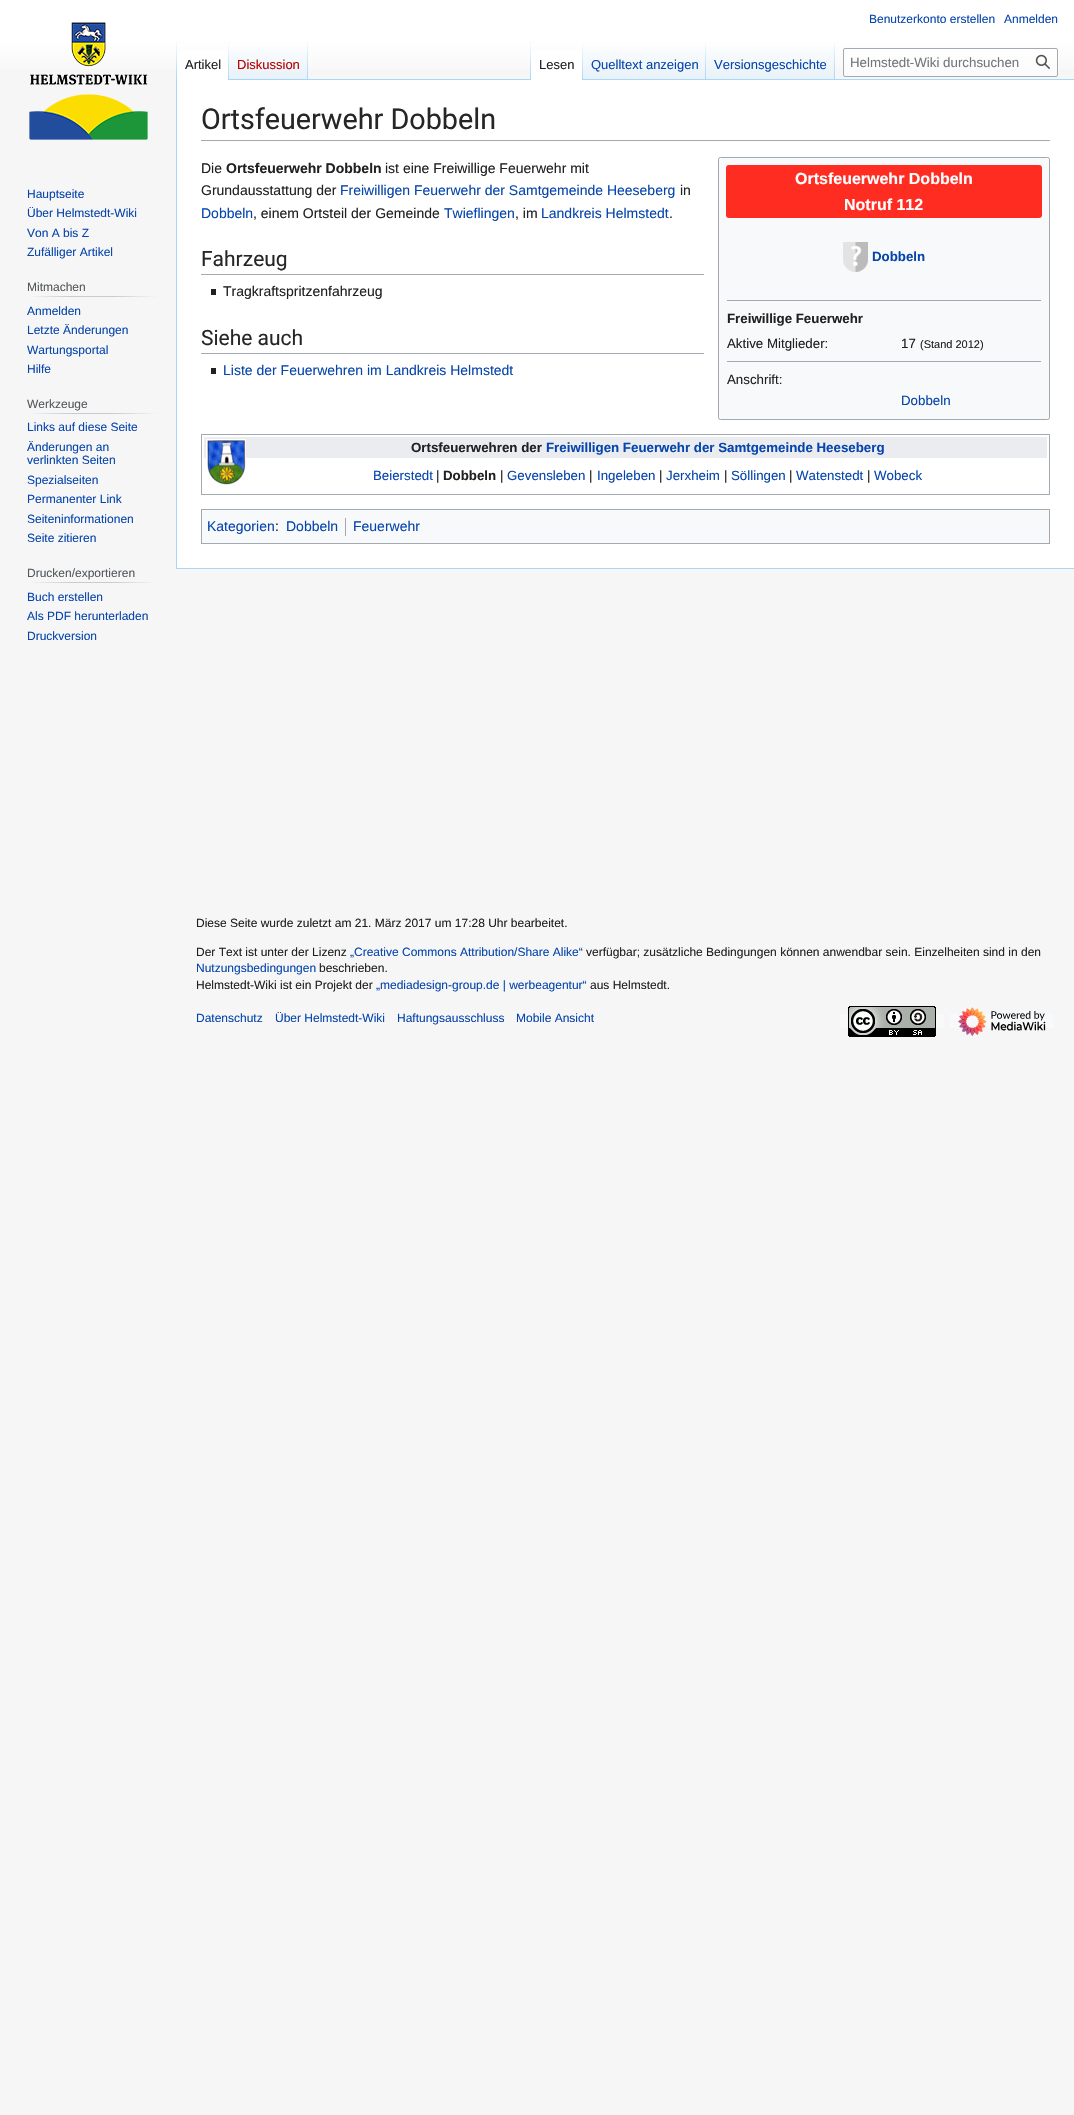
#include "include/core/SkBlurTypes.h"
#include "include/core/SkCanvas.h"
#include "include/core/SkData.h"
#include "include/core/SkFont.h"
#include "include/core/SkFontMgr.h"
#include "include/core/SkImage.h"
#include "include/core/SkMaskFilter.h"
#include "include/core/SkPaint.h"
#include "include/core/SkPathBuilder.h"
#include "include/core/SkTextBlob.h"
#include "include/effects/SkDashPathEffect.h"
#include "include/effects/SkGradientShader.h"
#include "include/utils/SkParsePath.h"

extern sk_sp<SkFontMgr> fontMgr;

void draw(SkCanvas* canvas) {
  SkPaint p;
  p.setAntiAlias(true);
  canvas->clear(SkColorSetRGB(246, 246, 246));
  {
    const SkColor colors[] = {SK_ColorWHITE, SkColorSetRGB(246, 246, 246)};
    const float stops[] = {0.5f, 1};
    const SkPoint ends[] = {{537, 0}, {537, 80}};
    p.setShader(SkGradientShader::MakeLinear(ends, colors, stops, 2, SkTileMode::kClamp));
    p.setAlpha(255);
  }
  canvas->drawRect(SkRect::MakeLTRB(0, 0, 1074, 69), p);
  p.setShader(nullptr);
  p.setColor(SkColorSetRGB(167, 215, 249));
  canvas->drawRect(SkRect::MakeLTRB(176, 568, 1074, 569), p);
  canvas->drawRect(SkRect::MakeLTRB(176, 79, 177, 569), p);
  {
    const SkColor colors[] = {SkColorSetARGB(0, 167, 215, 249), SkColorSetRGB(167, 215, 249)};
    const float stops[] = {0, 1};
    const SkPoint ends[] = {{177, 40}, {177, 80}};
    p.setShader(SkGradientShader::MakeLinear(ends, colors, stops, 2, SkTileMode::kClamp));
    p.setAlpha(255);
  }
  canvas->drawRect(SkRect::MakeLTRB(176, 40, 177, 80), p);
  p.setShader(nullptr);
  p.setColor(SK_ColorWHITE);
  canvas->drawRect(SkRect::MakeLTRB(177, 51, 228, 80), p);
  {
    const SkColor colors[] = {SK_ColorWHITE, SkColorSetRGB(167, 215, 249)};
    const float stops[] = {0, 1};
    const SkPoint ends[] = {{229, 40}, {229, 80}};
    p.setShader(SkGradientShader::MakeLinear(ends, colors, stops, 2, SkTileMode::kClamp));
    p.setAlpha(255);
  }
  canvas->drawRect(SkRect::MakeLTRB(228, 40, 229, 80), p);
  {
    const SkColor colors[] = {SkColorSetRGB(119, 193, 246), SkColorSetRGB(232, 242, 248), SK_ColorWHITE};
    const float stops[] = {0, 0.03f, 1};
    const SkPoint ends[] = {{269, 80}, {269, 40}};
    p.setShader(SkGradientShader::MakeLinear(ends, colors, stops, 3, SkTileMode::kClamp));
    p.setAlpha(255);
  }
  canvas->drawRect(SkRect::MakeLTRB(229, 46, 308, 80), p);
  {
    const SkColor colors[] = {SkColorSetARGB(0, 167, 215, 249), SkColorSetRGB(167, 215, 249)};
    const float stops[] = {0, 1};
    const SkPoint ends[] = {{308, 40}, {308, 80}};
    p.setShader(SkGradientShader::MakeLinear(ends, colors, stops, 2, SkTileMode::kClamp));
    p.setAlpha(255);
  }
  canvas->drawRect(SkRect::MakeLTRB(307, 40, 308, 80), p);
  p.setShader(nullptr);
  p.setColor(SkColorSetRGB(167, 215, 249));
  canvas->drawRect(SkRect::MakeLTRB(308, 79, 1074, 80), p);
  {
    const SkColor colors[] = {SkColorSetARGB(0, 167, 215, 249), SkColorSetRGB(167, 215, 249)};
    const float stops[] = {0, 1};
    const SkPoint ends[] = {{531, 40}, {531, 80}};
    p.setShader(SkGradientShader::MakeLinear(ends, colors, stops, 2, SkTileMode::kClamp));
    p.setAlpha(255);
  }
  canvas->drawRect(SkRect::MakeLTRB(530, 40, 531, 80), p);
  p.setShader(nullptr);
  p.setColor(SK_ColorWHITE);
  canvas->drawRect(SkRect::MakeLTRB(531, 51, 582, 80), p);
  {
    const SkColor colors[] = {SK_ColorWHITE, SkColorSetRGB(167, 215, 249)};
    const float stops[] = {0, 1};
    const SkPoint ends[] = {{583, 40}, {583, 80}};
    p.setShader(SkGradientShader::MakeLinear(ends, colors, stops, 2, SkTileMode::kClamp));
    p.setAlpha(255);
  }
  canvas->drawRect(SkRect::MakeLTRB(582, 40, 583, 80), p);
  {
    const SkColor colors[] = {SkColorSetRGB(119, 193, 246), SkColorSetRGB(232, 242, 248), SK_ColorWHITE};
    const float stops[] = {0, 0.03f, 1};
    const SkPoint ends[] = {{645, 80}, {645, 40}};
    p.setShader(SkGradientShader::MakeLinear(ends, colors, stops, 3, SkTileMode::kClamp));
    p.setAlpha(255);
  }
  canvas->drawRect(SkRect::MakeLTRB(583, 46, 706, 79), p);
  {
    const SkColor colors[] = {SkColorSetARGB(0, 167, 215, 249), SkColorSetRGB(167, 215, 249)};
    const float stops[] = {0, 1};
    const SkPoint ends[] = {{706, 40}, {706, 80}};
    p.setShader(SkGradientShader::MakeLinear(ends, colors, stops, 2, SkTileMode::kClamp));
    p.setAlpha(255);
  }
  canvas->drawRect(SkRect::MakeLTRB(705, 40, 706, 80), p);
  {
    const SkColor colors[] = {SkColorSetRGB(119, 193, 246), SkColorSetRGB(232, 242, 248), SK_ColorWHITE};
    const float stops[] = {0, 0.03f, 1};
    const SkPoint ends[] = {{771, 80}, {771, 40}};
    p.setShader(SkGradientShader::MakeLinear(ends, colors, stops, 3, SkTileMode::kClamp));
    p.setAlpha(255);
  }
  canvas->drawRect(SkRect::MakeLTRB(706, 46, 835, 79), p);
  {
    const SkColor colors[] = {SkColorSetARGB(0, 167, 215, 249), SkColorSetRGB(167, 215, 249)};
    const float stops[] = {0, 1};
    const SkPoint ends[] = {{835, 40}, {835, 80}};
    p.setShader(SkGradientShader::MakeLinear(ends, colors, stops, 2, SkTileMode::kClamp));
    p.setAlpha(255);
  }
  canvas->drawRect(SkRect::MakeLTRB(834, 40, 835, 80), p);
  p.setShader(nullptr);
  p.setColor(SkColorSetARGB(128, 255, 255, 255));
  canvas->drawRoundRect(SkRect::MakeLTRB(843.5f, 48.5f, 1057.5f, 76.5f), 1.5f, 1.5f, p);
  p.setStyle(SkPaint::kStroke_Style);
  p.setStrokeWidth(1);
  p.setColor(SkColorSetRGB(162, 169, 177));
  canvas->drawRoundRect(SkRect::MakeLTRB(843.5f, 48.5f, 1057.5f, 76.5f), 1.5f, 1.5f, p);
  canvas->drawImageRect(SkImages::DeferredFromEncodedData(SkData::MakeFromFileName("images/1.png")), SkRect::MakeLTRB(1035, 54, 1050, 69), SkSamplingOptions());
  canvas->drawImageRect(SkImages::DeferredFromEncodedData(SkData::MakeFromFileName("images/2.png")), SkRect::MakeLTRB(29, 22, 148, 140), SkSamplingOptions());
  p.setStyle(SkPaint::kFill_Style);
  {
    const SkColor colors[] = {SkColorSetRGB(246, 246, 246), SkColorSetRGB(200, 204, 209), SkColorSetRGB(200, 204, 209), SkColorSetRGB(246, 246, 246)};
    const float stops[] = {0, 0.33f, 0.66f, 1};
    const SkPoint ends[] = {{27, 297}, {158, 297}};
    p.setShader(SkGradientShader::MakeLinear(ends, colors, stops, 4, SkTileMode::kClamp));
    p.setAlpha(255);
  }
  canvas->drawRect(SkRect::MakeLTRB(27, 296, 158, 297), p);
  {
    const SkColor colors[] = {SkColorSetRGB(246, 246, 246), SkColorSetRGB(200, 204, 209), SkColorSetRGB(200, 204, 209), SkColorSetRGB(246, 246, 246)};
    const float stops[] = {0, 0.33f, 0.66f, 1};
    const SkPoint ends[] = {{27, 414}, {158, 414}};
    p.setShader(SkGradientShader::MakeLinear(ends, colors, stops, 4, SkTileMode::kClamp));
    p.setAlpha(255);
  }
  canvas->drawRect(SkRect::MakeLTRB(27, 413, 158, 414), p);
  {
    const SkColor colors[] = {SkColorSetRGB(246, 246, 246), SkColorSetRGB(200, 204, 209), SkColorSetRGB(200, 204, 209), SkColorSetRGB(246, 246, 246)};
    const float stops[] = {0, 0.33f, 0.66f, 1};
    const SkPoint ends[] = {{27, 583}, {158, 583}};
    p.setShader(SkGradientShader::MakeLinear(ends, colors, stops, 4, SkTileMode::kClamp));
    p.setAlpha(255);
  }
  canvas->drawRect(SkRect::MakeLTRB(27, 582, 158, 583), p);
  p.setShader(nullptr);
  p.setColor(SK_ColorWHITE);
  canvas->drawRect(SkRect::MakeLTRB(177, 80, 1074, 568), p);
  p.setColor(SkColorSetRGB(162, 169, 177));
  canvas->drawRect(SkRect::MakeLTRB(201, 140, 1050, 141), p);
  p.setColor(SkColorSetRGB(248, 249, 250));
  canvas->drawRoundRect(SkRect::MakeLTRB(718.5f, 157.5f, 1049.5f, 419.5f), 2, 2, p);
  p.setStyle(SkPaint::kStroke_Style);
  p.setColor(SkColorSetRGB(162, 169, 177));
  canvas->drawRoundRect(SkRect::MakeLTRB(718.5f, 157.5f, 1049.5f, 419.5f), 2, 2, p);
  p.setStyle(SkPaint::kFill_Style);
  p.setColor(SkColorSetRGB(255, 45, 33));
  canvas->drawRoundRect(SkRect::MakeLTRB(726, 165, 1042, 218), 3, 3, p);
  canvas->drawImageRect(SkImages::DeferredFromEncodedData(SkData::MakeFromFileName("images/3.png")), SkRect::MakeLTRB(843, 242, 868, 272), SkSamplingOptions());
  p.setColor(SkColorSetRGB(162, 169, 177));
  canvas->drawRect(SkRect::MakeLTRB(727, 300, 1041, 301), p);
  canvas->drawRect(SkRect::MakeLTRB(727, 361, 1041, 362), p);
  canvas->drawRect(SkRect::MakeLTRB(201, 274, 704, 275), p);
  p.setColor(SkColorSetRGB(32, 33, 34));
  canvas->drawRect(SkRect::MakeLTRB(211, 289, 216, 295), p);
  p.setColor(SkColorSetRGB(162, 169, 177));
  canvas->drawRect(SkRect::MakeLTRB(201, 353, 704, 354), p);
  p.setColor(SkColorSetRGB(32, 33, 34));
  canvas->drawRect(SkRect::MakeLTRB(211, 368, 216, 374), p);
  p.setStyle(SkPaint::kStroke_Style);
  p.setColor(SkColorSetRGB(162, 169, 177));
  canvas->drawRect(SkRect::MakeLTRB(201.5f, 434.5f, 1049.5f, 494.5f), p);
  p.setStyle(SkPaint::kFill_Style);
  p.setColor(SkColorSetRGB(234, 236, 240));
  canvas->drawRect(SkRect::MakeLTRB(204, 437, 1047, 458), p);
  canvas->drawImageRect(SkImages::DeferredFromEncodedData(SkData::MakeFromFileName("images/4.png")), SkRect::MakeLTRB(206, 439, 246, 485), SkSamplingOptions());
  p.setColor(SkColorSetRGB(248, 249, 250));
  canvas->drawRect(SkRect::MakeLTRB(201.5f, 509.5f, 1049.5f, 543.5f), p);
  p.setStyle(SkPaint::kStroke_Style);
  p.setColor(SkColorSetRGB(162, 169, 177));
  canvas->drawRect(SkRect::MakeLTRB(201.5f, 509.5f, 1049.5f, 543.5f), p);
  p.setStyle(SkPaint::kFill_Style);
  canvas->drawRect(SkRect::MakeLTRB(345, 518, 346, 536), p);
  p.setColor(SkColorSetRGB(248, 249, 250));
  canvas->drawRect(SkRect::MakeLTRB(840, 1014, 944, 1028), p);
  canvas->drawImageRect(SkImages::DeferredFromEncodedData(SkData::MakeFromFileName("images/5.png")), SkRect::MakeLTRB(848, 1006, 936, 1037), SkSamplingOptions());
  canvas->drawRect(SkRect::MakeLTRB(950, 1014, 1054, 1028), p);
  canvas->drawImageRect(SkImages::DeferredFromEncodedData(SkData::MakeFromFileName("images/6.png")), SkRect::MakeLTRB(958, 1007, 1046, 1036), SkSamplingOptions());
  SkFont font1(fontMgr->matchFamilyStyle("Liberation Sans", SkFontStyle::Normal()), 12);
  font1.setSubpixel(true);
  p.setColor(SkColorSetRGB(6, 69, 173));
  canvas->drawString("Benutzerkonto erstellen", 869, 23, font1, p);
  canvas->drawString("Anmelden", 1004, 23, font1, p);
  SkFont font2(fontMgr->matchFamilyStyle("Liberation Sans", SkFontStyle::Normal()), 13);
  font2.setSubpixel(true);
  p.setColor(SkColorSetRGB(32, 33, 34));
  canvas->drawString("Artikel", 185, 69, font2, p);
  p.setColor(SkColorSetRGB(186, 0, 0));
  canvas->drawString("Diskussion", 237, 69, font2, p);
  p.setColor(SkColorSetRGB(32, 33, 34));
  canvas->drawString("Lesen", 539, 69, font2, p);
  p.setColor(SkColorSetRGB(6, 69, 173));
  canvas->drawString("Quelltext anzeigen", 591, 69, font2, p);
  canvas->drawString("Versionsgeschichte", 714, 69, font2, p);
  SkFont font3(fontMgr->matchFamilyStyle("Liberation Sans", SkFontStyle::Normal()), 13.3f);
  font3.setSubpixel(true);
  p.setColor(SkColorSetRGB(114, 119, 125));
  canvas->drawString("Helmstedt-Wiki durchsuchen", 850, 67, font3, p);
  p.setColor(SkColorSetRGB(6, 69, 173));
  canvas->drawString("Hauptseite", 27, 198, font1, p);
  canvas->drawString("Über Helmstedt-Wiki", 27, 217, font1, p);
  canvas->drawString("Von A bis Z", 27, 237, font1, p);
  canvas->drawString("Zufälliger Artikel", 27, 256, font1, p);
  p.setColor(SkColorSetRGB(84, 89, 93));
  canvas->drawString("Mitmachen", 27, 291, font1, p);
  p.setColor(SkColorSetRGB(6, 69, 173));
  canvas->drawString("Anmelden", 27, 315, font1, p);
  canvas->drawString("Letzte Änderungen", 27, 334, font1, p);
  canvas->drawString("Wartungsportal", 27, 354, font1, p);
  canvas->drawString("Hilfe", 27, 373, font1, p);
  p.setColor(SkColorSetRGB(84, 89, 93));
  canvas->drawString("Werkzeuge", 27, 408, font1, p);
  p.setColor(SkColorSetRGB(6, 69, 173));
  canvas->drawString("Links auf diese Seite", 27, 431, font1, p);
  canvas->drawString("Änderungen an", 27, 451, font1, p);
  canvas->drawString("verlinkten Seiten", 27, 464, font1, p);
  canvas->drawString("Spezialseiten", 27, 484, font1, p);
  canvas->drawString("Permanenter Link", 27, 503, font1, p);
  canvas->drawString("Seiteninformationen", 27, 523, font1, p);
  canvas->drawString("Seite zitieren", 27, 542, font1, p);
  p.setColor(SkColorSetRGB(84, 89, 93));
  canvas->drawString("Drucken/exportieren", 27, 577, font1, p);
  p.setColor(SkColorSetRGB(6, 69, 173));
  canvas->drawString("Buch erstellen", 27, 601, font1, p);
  canvas->drawString("Als PDF herunterladen", 27, 620, font1, p);
  canvas->drawString("Druckversion", 27, 640, font1, p);
  SkFont font4(fontMgr->matchFamilyStyle("Roboto", SkFontStyle::Normal()), 28.75f);
  font4.setSubpixel(true);
  p.setColor(SkColorSetRGB(38, 38, 38));
  canvas->drawString("Ortsfeuerwehr Dobbeln", 201, 129, font4, p);
  SkFont font5(fontMgr->matchFamilyStyle("Liberation Sans", SkFontStyle::Normal()), 14);
  font5.setSubpixel(true);
  p.setColor(SkColorSetRGB(32, 33, 34));
  canvas->drawString("Die", 201, 173, font5, p);
  SkFont font6(fontMgr->matchFamilyStyle("Liberation Sans", SkFontStyle::Bold()), 14);
  font6.setSubpixel(true);
  canvas->drawString("Ortsfeuerwehr Dobbeln", 226, 173, font6, p);
  canvas->drawString("ist eine Freiwillige Feuerwehr mit", 385, 173, font5, p);
  canvas->drawString("Grundausstattung der", 201, 195, font5, p);
  p.setColor(SkColorSetRGB(6, 69, 173));
  canvas->drawString("Freiwilligen Feuerwehr der Samtgemeinde Heeseberg", 340, 195, font5, p);
  p.setColor(SkColorSetRGB(32, 33, 34));
  canvas->drawString("in", 680, 195, font5, p);
  p.setColor(SkColorSetRGB(6, 69, 173));
  canvas->drawString("Dobbeln", 201, 218, font5, p);
  p.setColor(SkColorSetRGB(32, 33, 34));
  canvas->drawString(", einem Ortsteil der Gemeinde", 253, 218, font5, p);
  p.setColor(SkColorSetRGB(6, 69, 173));
  canvas->drawString("Twieflingen", 444, 218, font5, p);
  p.setColor(SkColorSetRGB(32, 33, 34));
  canvas->drawString(", im", 515, 218, font5, p);
  p.setColor(SkColorSetRGB(6, 69, 173));
  canvas->drawString("Landkreis Helmstedt", 541, 218, font5, p);
  p.setColor(SkColorSetRGB(32, 33, 34));
  canvas->drawString(".", 669, 218, font5, p);
  SkFont font7(fontMgr->matchFamilyStyle("Liberation Sans", SkFontStyle::Bold()), 16);
  font7.setSubpixel(true);
  p.setColor(SK_ColorWHITE);
  canvas->drawString("Ortsfeuerwehr Dobbeln", 795, 184, font7, p);
  canvas->drawString("Notruf 112", 844, 210, font7, p);
  SkFont font8(fontMgr->matchFamilyStyle("Liberation Sans", SkFontStyle::Bold()), 13.3f);
  font8.setSubpixel(true);
  p.setColor(SkColorSetRGB(6, 69, 173));
  canvas->drawString("Dobbeln", 872, 261, font8, p);
  p.setColor(SkColorSetRGB(32, 33, 34));
  canvas->drawString("Freiwillige Feuerwehr", 727, 323, font8, p);
  canvas->drawString("Aktive Mitglieder:", 727, 348, font3, p);
  canvas->drawString("17", 901, 348, font3, p);
  SkFont font9(fontMgr->matchFamilyStyle("Liberation Sans", SkFontStyle::Normal()), 11);
  font9.setSubpixel(true);
  canvas->drawString("(Stand 2012)", 920, 348, font9, p);
  canvas->drawString("Anschrift:", 727, 384, font3, p);
  p.setColor(SkColorSetRGB(6, 69, 173));
  canvas->drawString("Dobbeln", 901, 405, font3, p);
  SkFont font10(fontMgr->matchFamilyStyle("Roboto", SkFontStyle::Normal()), 21);
  font10.setSubpixel(true);
  p.setColor(SkColorSetRGB(38, 38, 38));
  canvas->drawString("Fahrzeug", 201, 266, font10, p);
  p.setColor(SkColorSetRGB(32, 33, 34));
  canvas->drawString("Tragkraftspritzenfahrzeug", 223, 296, font5, p);
  p.setColor(SkColorSetRGB(38, 38, 38));
  canvas->drawString("Siehe auch", 201, 345, font10, p);
  p.setColor(SkColorSetRGB(6, 69, 173));
  canvas->drawString("Liste der Feuerwehren im Landkreis Helmstedt", 223, 375, font5, p);
  p.setColor(SkColorSetRGB(32, 33, 34));
  canvas->drawString("Ortsfeuerwehren der", 411, 452, font8, p);
  p.setColor(SkColorSetRGB(6, 69, 173));
  canvas->drawString("Freiwilligen Feuerwehr der Samtgemeinde Heeseberg", 546, 452, font8, p);
  canvas->drawString("Beierstedt", 373, 480, font3, p);
  p.setColor(SkColorSetRGB(32, 33, 34));
  canvas->drawString("|", 436, 480, font3, p);
  canvas->drawString("Dobbeln", 443, 480, font8, p);
  canvas->drawString("|", 500, 480, font3, p);
  p.setColor(SkColorSetRGB(6, 69, 173));
  canvas->drawString("Gevensleben", 507, 480, font3, p);
  p.setColor(SkColorSetRGB(32, 33, 34));
  canvas->drawString("|", 589, 480, font3, p);
  p.setColor(SkColorSetRGB(6, 69, 173));
  canvas->drawString("Ingeleben", 597, 480, font3, p);
  p.setColor(SkColorSetRGB(32, 33, 34));
  canvas->drawString("|", 659, 480, font3, p);
  p.setColor(SkColorSetRGB(6, 69, 173));
  canvas->drawString("Jerxheim", 666, 480, font3, p);
  p.setColor(SkColorSetRGB(32, 33, 34));
  canvas->drawString("|", 724, 480, font3, p);
  p.setColor(SkColorSetRGB(6, 69, 173));
  canvas->drawString("Söllingen", 731, 480, font3, p);
  p.setColor(SkColorSetRGB(32, 33, 34));
  canvas->drawString("|", 789, 480, font3, p);
  p.setColor(SkColorSetRGB(6, 69, 173));
  canvas->drawString("Watenstedt", 796, 480, font3, p);
  p.setColor(SkColorSetRGB(32, 33, 34));
  canvas->drawString("|", 867, 480, font3, p);
  p.setColor(SkColorSetRGB(6, 69, 173));
  canvas->drawString("Wobeck", 874, 480, font3, p);
  canvas->drawString("Kategorien", 207, 531, font5, p);
  p.setColor(SkColorSetRGB(32, 33, 34));
  canvas->drawString(":", 275, 531, font5, p);
  p.setColor(SkColorSetRGB(6, 69, 173));
  canvas->drawString("Dobbeln", 286, 531, font5, p);
  canvas->drawString("Feuerwehr", 353, 531, font5, p);
  p.setColor(SkColorSetRGB(32, 33, 34));
  canvas->drawString("Diese Seite wurde zuletzt am 21. März 2017 um 17:28 Uhr bearbeitet.", 196, 927, font1, p);
  canvas->drawString("Der Text ist unter der Lizenz", 196, 956, font1, p);
  p.setColor(SkColorSetRGB(6, 69, 173));
  canvas->drawString("„Creative Commons Attribution/Share Alike“", 350, 956, font1, p);
  p.setColor(SkColorSetRGB(32, 33, 34));
  canvas->drawString("verfügbar; zusätzliche Bedingungen können anwendbar sein. Einzelheiten sind in den", 586, 956, font1, p);
  p.setColor(SkColorSetRGB(6, 69, 173));
  canvas->drawString("Nutzungsbedingungen", 196, 972, font1, p);
  p.setColor(SkColorSetRGB(32, 33, 34));
  canvas->drawString("beschrieben.", 319, 972, font1, p);
  canvas->drawString("Helmstedt-Wiki ist ein Projekt der", 196, 989, font1, p);
  p.setColor(SkColorSetRGB(6, 69, 173));
  canvas->drawString("„mediadesign-group.de | werbeagentur“", 376, 989, font1, p);
  p.setColor(SkColorSetRGB(32, 33, 34));
  canvas->drawString("aus Helmstedt.", 590, 989, font1, p);
  p.setColor(SkColorSetRGB(6, 69, 173));
  canvas->drawString("Datenschutz", 196, 1022, font1, p);
  canvas->drawString("Über Helmstedt-Wiki", 275, 1022, font1, p);
  canvas->drawString("Haftungsausschluss", 397, 1022, font1, p);
  canvas->drawString("Mobile Ansicht", 516, 1022, font1, p);
}
